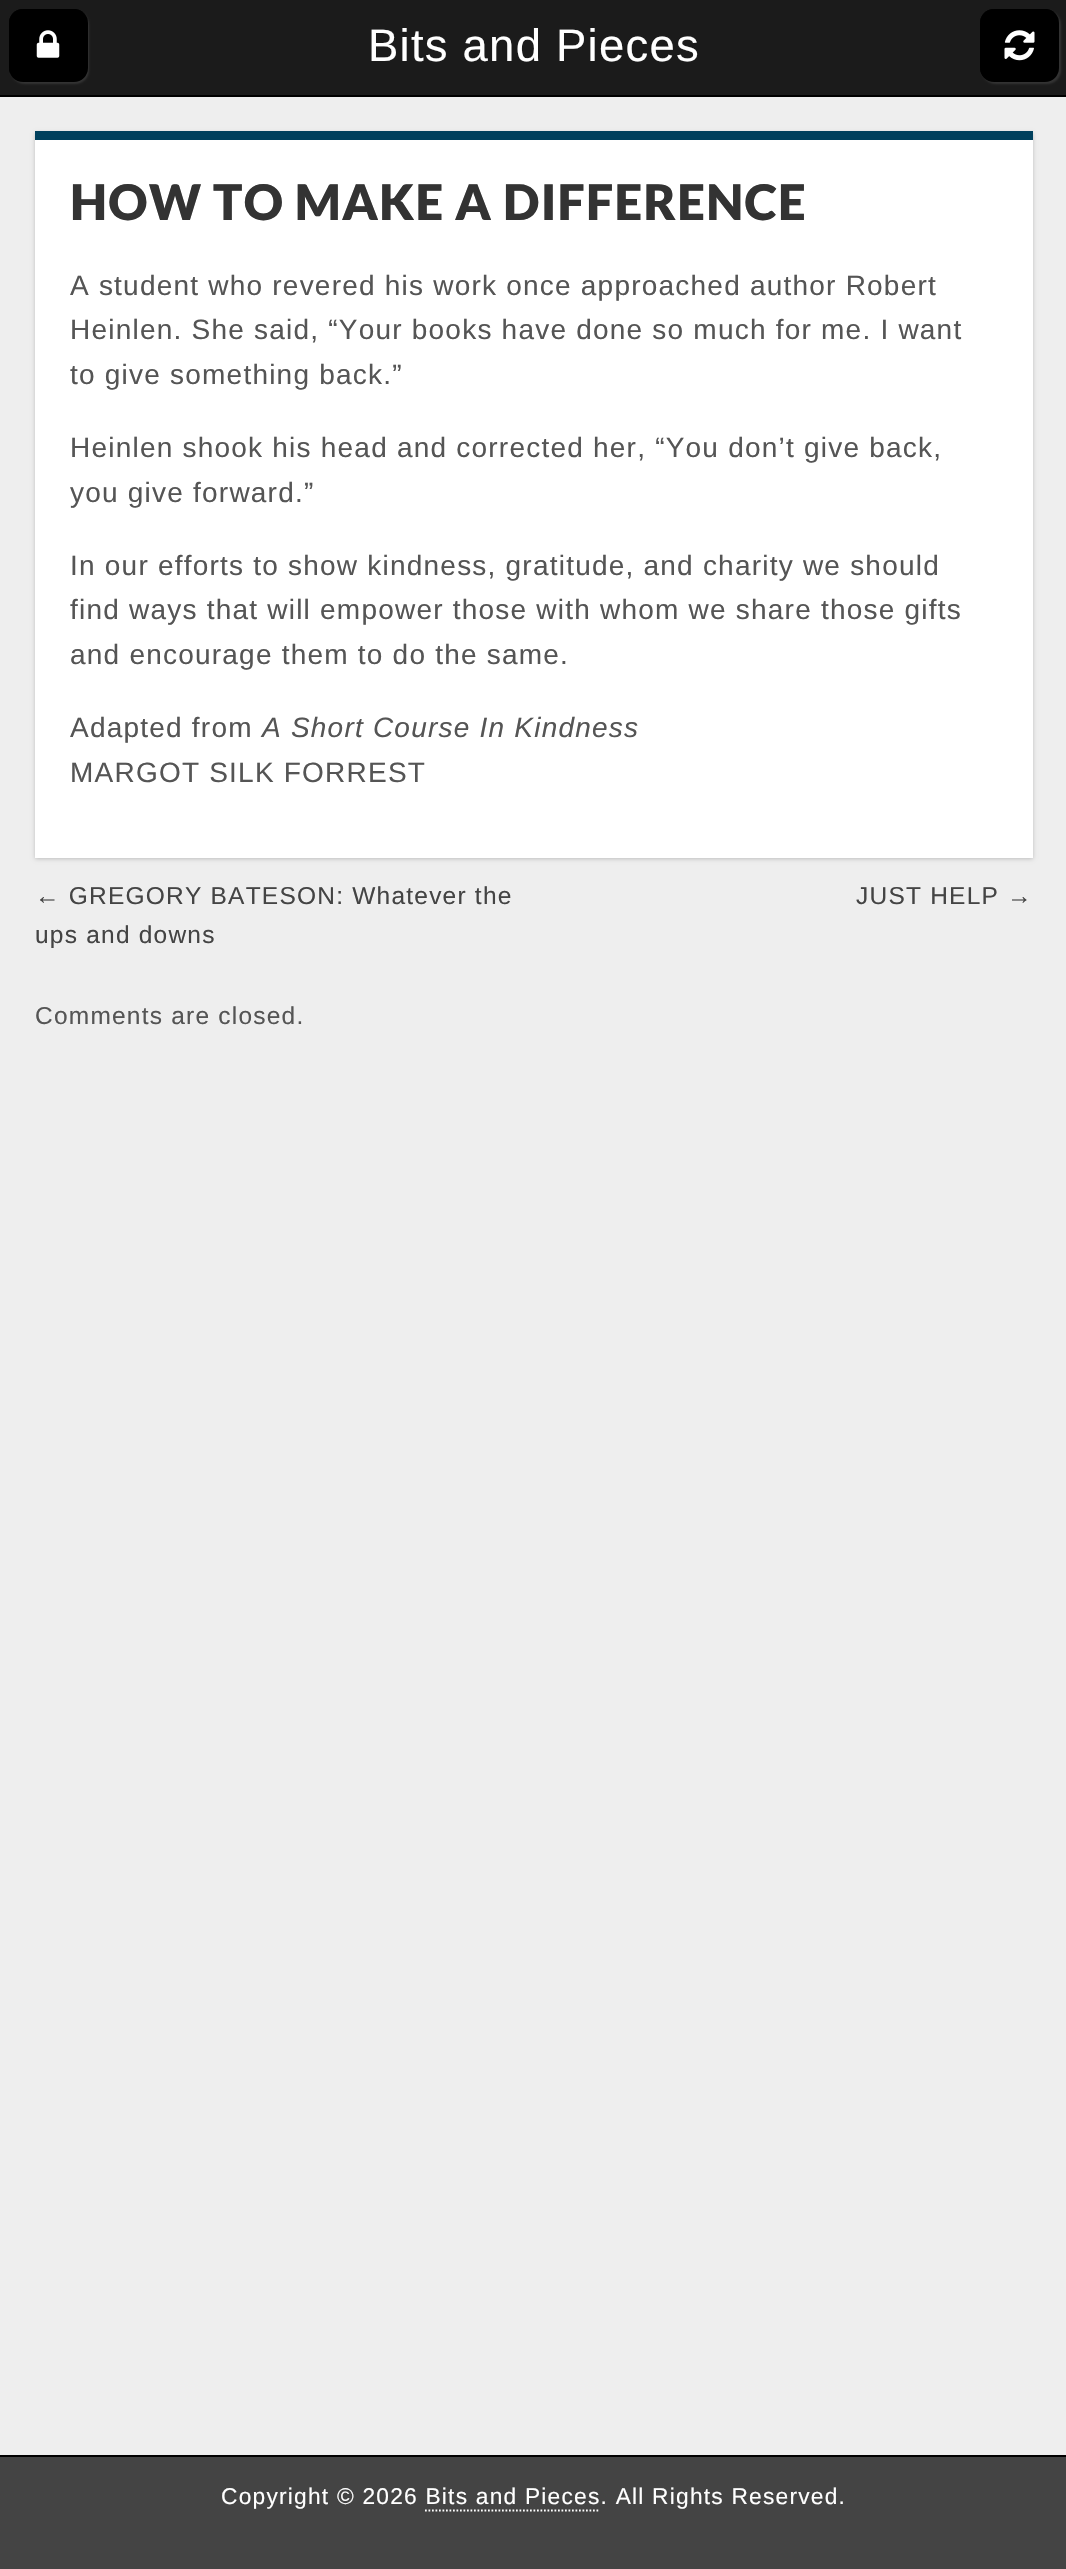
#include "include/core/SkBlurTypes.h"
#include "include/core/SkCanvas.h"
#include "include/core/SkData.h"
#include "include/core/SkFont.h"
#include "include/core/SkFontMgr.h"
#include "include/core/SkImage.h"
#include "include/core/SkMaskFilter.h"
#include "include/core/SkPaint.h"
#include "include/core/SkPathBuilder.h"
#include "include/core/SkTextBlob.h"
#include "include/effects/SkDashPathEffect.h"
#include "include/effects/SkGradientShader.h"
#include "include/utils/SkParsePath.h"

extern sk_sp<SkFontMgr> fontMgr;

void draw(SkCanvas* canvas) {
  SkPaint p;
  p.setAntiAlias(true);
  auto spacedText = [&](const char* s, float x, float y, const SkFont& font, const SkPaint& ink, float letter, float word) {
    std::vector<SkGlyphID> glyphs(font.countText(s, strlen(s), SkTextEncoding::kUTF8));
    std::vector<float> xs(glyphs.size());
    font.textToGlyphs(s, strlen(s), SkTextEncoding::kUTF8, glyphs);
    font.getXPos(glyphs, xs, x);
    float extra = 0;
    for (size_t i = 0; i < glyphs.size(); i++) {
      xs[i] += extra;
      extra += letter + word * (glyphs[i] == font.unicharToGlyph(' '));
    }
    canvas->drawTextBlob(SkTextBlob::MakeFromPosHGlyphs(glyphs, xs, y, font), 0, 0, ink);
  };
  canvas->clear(SkColorSetRGB(238, 238, 238));
  p.setColor(SkColorSetRGB(27, 27, 27));
  canvas->drawRect(SkRect::MakeLTRB(0, 0, 1066, 95), p);
  p.setColor(SK_ColorBLACK);
  canvas->drawRect(SkRect::MakeLTRB(0, 95, 1066, 97), p);
  p.setColor(SkColorSetRGB(51, 51, 51));
  p.setMaskFilter(SkMaskFilter::MakeBlur(kNormal_SkBlurStyle, 1));
  canvas->drawRoundRect(SkRect::MakeLTRB(11, 11, 89, 84), 14, 14, p);
  p.setMaskFilter(nullptr);
  p.setColor(SK_ColorBLACK);
  canvas->drawRoundRect(SkRect::MakeLTRB(9, 9, 88, 82), 14, 14, p);
  canvas->drawPath(SkPathBuilder().moveTo(24, 10).lineTo(75, 10).cubicTo(79, 10, 83, 12, 85, 15).cubicTo(83, 11, 79, 9, 74, 9).lineTo(23, 9).cubicTo(15, 9, 9, 15, 9, 23).lineTo(9, 68).cubicTo(9, 71, 10, 73, 11, 75).cubicTo(10, 74, 10, 72, 10, 70).lineTo(10, 24).cubicTo(10, 17, 17, 10, 24, 10).close().detach(), p);
  canvas->drawImageRect(SkImages::DeferredFromEncodedData(SkData::MakeFromFileName("images/1.png")), SkRect::MakeLTRB(36, 30, 60, 58), SkSamplingOptions());
  p.setColor(SkColorSetRGB(51, 51, 51));
  p.setMaskFilter(SkMaskFilter::MakeBlur(kNormal_SkBlurStyle, 1));
  canvas->drawRoundRect(SkRect::MakeLTRB(982, 11, 1061, 84), 14, 14, p);
  p.setMaskFilter(nullptr);
  p.setColor(SK_ColorBLACK);
  canvas->drawRoundRect(SkRect::MakeLTRB(980, 9, 1059, 82), 14, 14, p);
  canvas->drawPath(SkPathBuilder().moveTo(996, 10).lineTo(1046, 10).cubicTo(1050, 10, 1054, 12, 1056, 15).cubicTo(1054, 11, 1050, 9, 1045, 9).lineTo(994, 9).cubicTo(986, 9, 980, 15, 980, 23).lineTo(980, 68).cubicTo(980, 72, 982, 76, 985, 78).cubicTo(983, 76, 982, 73, 982, 70).lineTo(982, 24).cubicTo(982, 17, 988, 10, 996, 10).close().detach(), p);
  canvas->drawImageRect(SkImages::DeferredFromEncodedData(SkData::MakeFromFileName("images/2.png")), SkRect::MakeLTRB(1004, 30, 1035, 61), SkSamplingOptions());
  p.setColor(SkColorSetARGB(51, 0, 0, 0));
  p.setMaskFilter(SkMaskFilter::MakeBlur(kNormal_SkBlurStyle, 2));
  canvas->drawRect(SkRect::MakeLTRB(35, 133, 1033, 859), p);
  p.setMaskFilter(nullptr);
  p.setColor(SK_ColorWHITE);
  canvas->drawRect(SkRect::MakeLTRB(35, 140, 1033, 858), p);
  p.setColor(SkColorSetRGB(0, 64, 93));
  canvas->drawRect(SkRect::MakeLTRB(35, 131, 1033, 140), p);
  p.setColor(SkColorSetRGB(68, 68, 68));
  canvas->drawRect(SkRect::MakeLTRB(0, 2457, 1066, 2569), p);
  p.setColor(SK_ColorBLACK);
  canvas->drawRect(SkRect::MakeLTRB(0, 2455, 1066, 2457), p);
  p.setStyle(SkPaint::kStroke_Style);
  p.setStrokeWidth(1.8f);
  p.setColor(SK_ColorWHITE);
  p.setPathEffect(SkDashPathEffect::Make({{1.75f, 1.75f}}, 0));
  canvas->drawPath(SkPathBuilder().moveTo(425, 2510.5f).lineTo(600, 2510.5f).detach(), p);
  p.setPathEffect(nullptr);
  SkFont font1(fontMgr->matchFamilyStyle("Liberation Sans", SkFontStyle::Normal()), 45.5f);
  font1.setSubpixel(true);
  p.setStyle(SkPaint::kFill_Style);
  spacedText("Bits and Pieces", 368, 61, font1, p, 1.22f, 0);
  SkFont font2(fontMgr->matchFamilyStyle("Lato", SkFontStyle(900, SkFontStyle::kNormal_Width, SkFontStyle::kUpright_Slant)), 49);
  font2.setSubpixel(true);
  p.setColor(SkColorSetRGB(51, 51, 51));
  spacedText("HOW TO MAKE A DIFFERENCE", 70, 220, font2, p, 1.22f, 0);
  SkFont font3(fontMgr->matchFamilyStyle("Liberation Sans", SkFontStyle::Normal()), 28);
  font3.setSubpixel(true);
  p.setColor(SkColorSetRGB(85, 85, 85));
  spacedText("A student who revered his work once approached author Robert", 70, 295, font3, p, 1.22f, 0);
  spacedText("Heinlen. She said, “Your books have done so much for me. I want", 70, 339, font3, p, 1.22f, 0);
  spacedText("to give something back.”", 70, 384, font3, p, 1.22f, 0);
  spacedText("Heinlen shook his head and corrected her, “You don’t give back,", 70, 457, font3, p, 1.22f, 0);
  spacedText("you give forward.”", 70, 502, font3, p, 1.22f, 0);
  spacedText("In our efforts to show kindness, gratitude, and charity we should", 70, 575, font3, p, 1.22f, 0);
  spacedText("find ways that will empower those with whom we share those gifts", 70, 619, font3, p, 1.22f, 0);
  spacedText("and encourage them to do the same.", 70, 664, font3, p, 1.22f, 0);
  spacedText("Adapted from", 70, 737, font3, p, 1.22f, 0);
  SkFont font4(fontMgr->matchFamilyStyle("Liberation Sans", SkFontStyle::Italic()), 28);
  font4.setSubpixel(true);
  spacedText("A Short Course In Kindness", 262, 737, font4, p, 1.22f, 0);
  spacedText("MARGOT SILK FORREST", 70, 782, font3, p, 1.22f, 0);
  SkFont font5(fontMgr->matchFamilyStyle("Liberation Sans", SkFontStyle::Normal()), 24.5f);
  font5.setSubpixel(true);
  p.setColor(SkColorSetRGB(68, 68, 68));
  spacedText("← GREGORY BATESON: Whatever the", 35, 904, font5, p, 1.22f, 0);
  spacedText("ups and downs", 35, 943, font5, p, 1.22f, 0);
  spacedText("JUST HELP →", 856, 904, font5, p, 1.22f, 0);
  p.setColor(SkColorSetRGB(85, 85, 85));
  spacedText("Comments are closed.", 35, 1024, font5, p, 1.22f, 0);
  SkFont font6(fontMgr->matchFamilyStyle("Liberation Sans", SkFontStyle::Normal()), 22.75f);
  font6.setSubpixel(true);
  p.setColor(SK_ColorWHITE);
  spacedText("Copyright © 2026 Bits and Pieces. All Rights Reserved.", 221, 2504, font6, p, 1.22f, 0);
}
